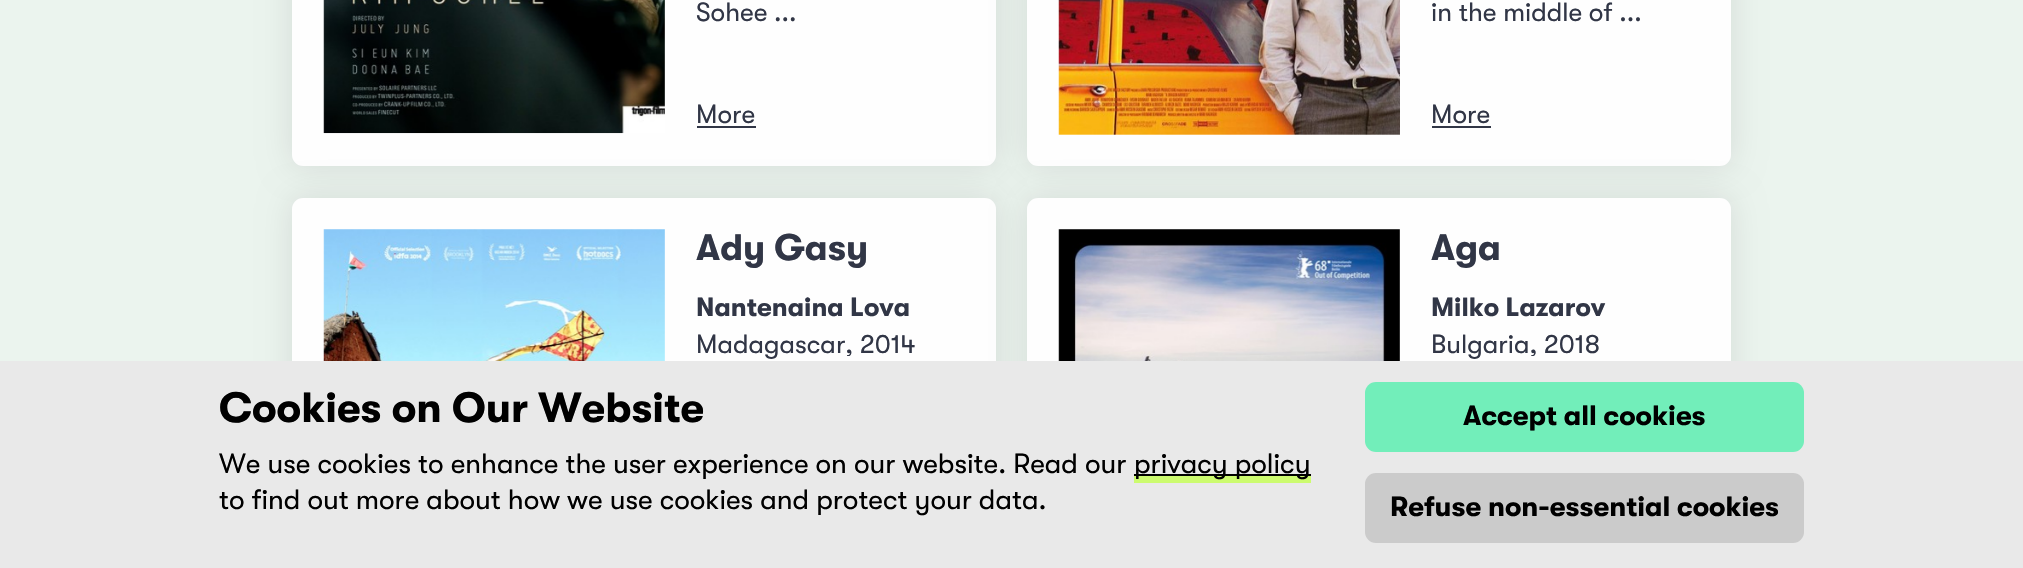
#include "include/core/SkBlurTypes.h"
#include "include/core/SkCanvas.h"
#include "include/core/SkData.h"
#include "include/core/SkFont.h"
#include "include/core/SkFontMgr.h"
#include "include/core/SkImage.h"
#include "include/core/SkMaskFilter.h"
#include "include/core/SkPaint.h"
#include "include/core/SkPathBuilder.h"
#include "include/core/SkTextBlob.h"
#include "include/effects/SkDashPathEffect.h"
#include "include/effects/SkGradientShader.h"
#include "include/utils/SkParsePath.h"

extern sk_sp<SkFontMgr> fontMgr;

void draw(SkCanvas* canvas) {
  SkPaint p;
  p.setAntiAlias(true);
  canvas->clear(SkColorSetRGB(235, 244, 238));
  p.setColor(SkColorSetARGB(26, 0, 0, 0));
  p.setMaskFilter(SkMaskFilter::MakeBlur(kNormal_SkBlurStyle, 16));
  canvas->drawRoundRect(SkRect::MakeLTRB(292, -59, 996, 166), 11, 11, p);
  p.setMaskFilter(nullptr);
  p.setColor(SkColorSetRGB(254, 254, 254));
  canvas->drawRoundRect(SkRect::MakeLTRB(292, -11, 996, 166), 11, 11, p);
  canvas->drawImageRect(SkImages::DeferredFromEncodedData(SkData::MakeFromFileName("images/1.png")), SkRect::MakeLTRB(323, 0, 665, 134), SkSamplingOptions());
  p.setColor(SkColorSetRGB(49, 54, 70));
  canvas->drawRect(SkRect::MakeLTRB(697, 126, 756, 128), p);
  p.setColor(SkColorSetARGB(26, 0, 0, 0));
  p.setMaskFilter(SkMaskFilter::MakeBlur(kNormal_SkBlurStyle, 16));
  canvas->drawRoundRect(SkRect::MakeLTRB(1027, -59, 1731, 166), 11, 11, p);
  p.setMaskFilter(nullptr);
  p.setColor(SkColorSetRGB(254, 254, 254));
  canvas->drawRoundRect(SkRect::MakeLTRB(1027, -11, 1731, 166), 11, 11, p);
  canvas->drawImageRect(SkImages::DeferredFromEncodedData(SkData::MakeFromFileName("images/2.png")), SkRect::MakeLTRB(1058, 0, 1400, 135), SkSamplingOptions());
  p.setColor(SkColorSetRGB(49, 54, 70));
  canvas->drawRect(SkRect::MakeLTRB(1432, 126, 1491, 128), p);
  p.setColor(SkColorSetARGB(26, 0, 0, 0));
  p.setMaskFilter(SkMaskFilter::MakeBlur(kNormal_SkBlurStyle, 16));
  canvas->drawRoundRect(SkRect::MakeLTRB(292, 198, 996, 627), 11, 11, p);
  p.setMaskFilter(nullptr);
  p.setColor(SkColorSetRGB(254, 254, 254));
  canvas->drawRoundRect(SkRect::MakeLTRB(292, 198, 996, 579), 11, 11, p);
  canvas->drawImageRect(SkImages::DeferredFromEncodedData(SkData::MakeFromFileName("images/3.png")), SkRect::MakeLTRB(323, 229, 665, 361), SkSamplingOptions());
  p.setColor(SkColorSetARGB(26, 0, 0, 0));
  p.setMaskFilter(SkMaskFilter::MakeBlur(kNormal_SkBlurStyle, 16));
  canvas->drawRoundRect(SkRect::MakeLTRB(1027, 198, 1731, 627), 11, 11, p);
  p.setMaskFilter(nullptr);
  p.setColor(SkColorSetRGB(254, 254, 254));
  canvas->drawRoundRect(SkRect::MakeLTRB(1027, 198, 1731, 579), 11, 11, p);
  canvas->drawImageRect(SkImages::DeferredFromEncodedData(SkData::MakeFromFileName("images/4.png")), SkRect::MakeLTRB(1058, 229, 1400, 361), SkSamplingOptions());
  p.setColor(SkColorSetRGB(233, 233, 233));
  canvas->drawRect(SkRect::MakeLTRB(0, 361, 2023, 568), p);
  p.setColor(SK_ColorBLACK);
  canvas->drawRect(SkRect::MakeLTRB(1134, 474, 1311, 476), p);
  p.setColor(SkColorSetRGB(204, 251, 111));
  canvas->drawRect(SkRect::MakeLTRB(1134, 476, 1311, 483), p);
  p.setColor(SkColorSetRGB(114, 238, 186));
  canvas->drawRoundRect(SkRect::MakeLTRB(1365, 382, 1804, 452), 11, 11, p);
  p.setColor(SkColorSetRGB(203, 203, 203));
  canvas->drawRoundRect(SkRect::MakeLTRB(1365, 473, 1804, 543), 11, 11, p);
  SkFont font1(fontMgr->matchFamilyStyle("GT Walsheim", SkFontStyle::Normal()), 26.25f);
  font1.setSubpixel(true);
  p.setColor(SkColorSetRGB(49, 54, 70));
  canvas->drawString("Sohee ...", 696, 21, font1, p);
  canvas->drawString("More", 696, 123, font1, p);
  canvas->drawString("in the middle of ...", 1431, 21, font1, p);
  canvas->drawString("More", 1431, 123, font1, p);
  SkFont font2(fontMgr->matchFamilyStyle("GT Walsheim", SkFontStyle::Bold()), 36.75f);
  font2.setSubpixel(true);
  canvas->drawString("Ady Gasy", 696, 260, font2, p);
  SkFont font3(fontMgr->matchFamilyStyle("GT Walsheim", SkFontStyle::Bold()), 26.25f);
  font3.setSubpixel(true);
  canvas->drawString("Nantenaina Lova", 696, 316, font3, p);
  canvas->drawString("Madagascar, 2014", 696, 353, font1, p);
  canvas->drawString("Aga", 1431, 260, font2, p);
  canvas->drawString("Milko Lazarov", 1431, 316, font3, p);
  canvas->drawString("Bulgaria, 2018", 1431, 353, font1, p);
  SkFont font4(fontMgr->matchFamilyStyle("GT Walsheim", SkFontStyle::Bold()), 42);
  font4.setSubpixel(true);
  p.setColor(SK_ColorBLACK);
  canvas->drawString("Cookies on Our Website", 219, 422, font4, p);
  SkFont font5(fontMgr->matchFamilyStyle("GT Walsheim", SkFontStyle::Normal()), 28);
  font5.setSubpixel(true);
  canvas->drawString("We use cookies to enhance the user experience on our website. Read our", 219, 473, font5, p);
  canvas->drawString("privacy policy", 1134, 473, font5, p);
  canvas->drawString("to find out more about how we use cookies and protect your data.", 219, 509, font5, p);
  SkFont font6(fontMgr->matchFamilyStyle("GT Walsheim", SkFontStyle::Bold()), 28);
  font6.setSubpixel(true);
  canvas->drawString("Accept all cookies", 1463, 425, font6, p);
  canvas->drawString("Refuse non-essential cookies", 1390, 516, font6, p);
}
